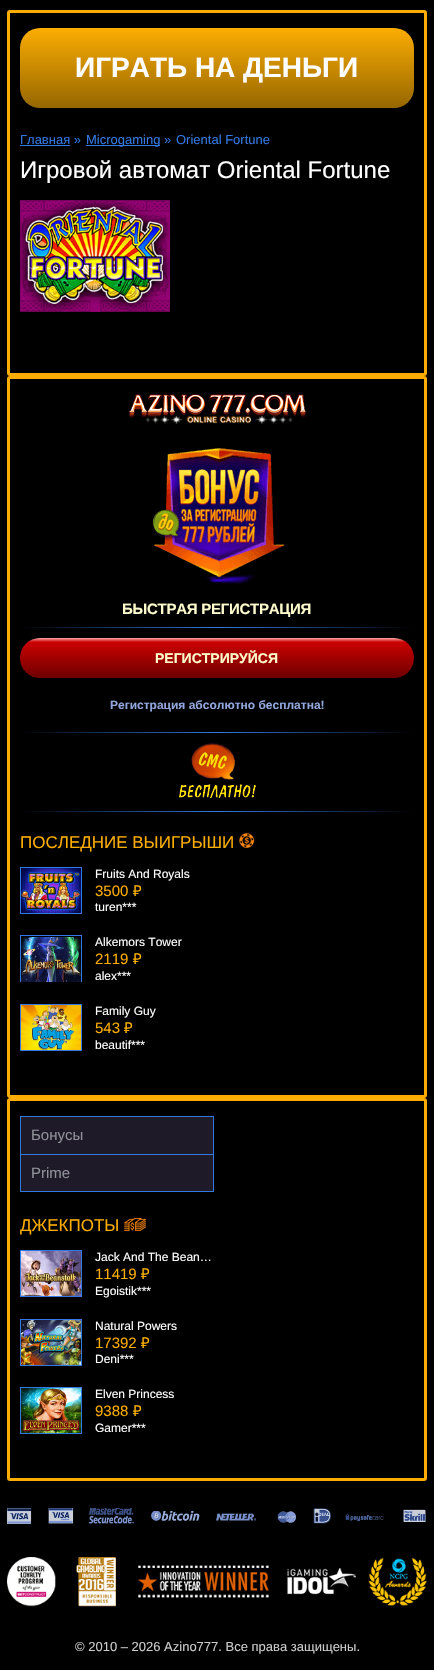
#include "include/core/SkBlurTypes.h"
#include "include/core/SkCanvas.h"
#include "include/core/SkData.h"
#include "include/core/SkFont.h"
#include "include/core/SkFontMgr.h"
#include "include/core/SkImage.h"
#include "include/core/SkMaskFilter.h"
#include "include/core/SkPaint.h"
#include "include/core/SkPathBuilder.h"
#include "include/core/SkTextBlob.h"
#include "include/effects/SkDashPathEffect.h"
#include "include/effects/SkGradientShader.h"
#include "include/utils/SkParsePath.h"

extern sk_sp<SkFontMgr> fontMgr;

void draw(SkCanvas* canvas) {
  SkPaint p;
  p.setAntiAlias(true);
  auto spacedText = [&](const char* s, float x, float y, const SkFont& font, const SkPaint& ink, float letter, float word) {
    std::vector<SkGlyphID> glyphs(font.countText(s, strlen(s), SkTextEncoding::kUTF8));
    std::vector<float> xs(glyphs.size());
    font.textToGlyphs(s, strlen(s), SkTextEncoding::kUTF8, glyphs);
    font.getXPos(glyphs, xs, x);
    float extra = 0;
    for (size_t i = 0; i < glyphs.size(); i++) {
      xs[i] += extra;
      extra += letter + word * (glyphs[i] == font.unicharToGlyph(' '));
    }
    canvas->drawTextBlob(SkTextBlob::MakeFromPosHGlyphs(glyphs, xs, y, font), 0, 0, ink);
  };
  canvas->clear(SK_ColorBLACK);
  p.setStyle(SkPaint::kStroke_Style);
  p.setStrokeWidth(3);
  p.setColor(SkColorSetRGB(251, 173, 2));
  canvas->drawRoundRect(SkRect::MakeLTRB(8.5f, 11.5f, 425.5f, 374.5f), 1.5f, 1.5f, p);
  p.setStyle(SkPaint::kFill_Style);
  {
    const SkColor colors[] = {SkColorSetRGB(251, 173, 2), SkColorSetRGB(150, 103, 1)};
    const float stops[] = {0, 1};
    const SkPoint ends[] = {{217, 28}, {217, 108}};
    p.setShader(SkGradientShader::MakeLinear(ends, colors, stops, 2, SkTileMode::kClamp));
    p.setAlpha(255);
  }
  canvas->drawRoundRect(SkRect::MakeLTRB(20, 28, 414, 108), 20, 20, p);
  p.setShader(nullptr);
  p.setColor(SkColorSetRGB(50, 121, 226));
  canvas->drawRect(SkRect::MakeLTRB(20, 145, 70, 146), p);
  canvas->drawRect(SkRect::MakeLTRB(86, 145, 160, 146), p);
  canvas->drawImageRect(SkImages::DeferredFromEncodedData(SkData::MakeFromFileName("images/1.png")), SkRect::MakeLTRB(20, 200, 170, 312), SkSamplingOptions());
  p.setStyle(SkPaint::kStroke_Style);
  p.setColor(SkColorSetRGB(251, 173, 2));
  canvas->drawRoundRect(SkRect::MakeLTRB(8.5f, 377.5f, 425.5f, 1096.5f), 1.5f, 1.5f, p);
  canvas->drawImageRect(SkImages::DeferredFromEncodedData(SkData::MakeFromFileName("images/2.png")), SkRect::MakeLTRB(129, 394, 306, 424), SkSamplingOptions());
  canvas->drawImageRect(SkImages::DeferredFromEncodedData(SkData::MakeFromFileName("images/3.png")), SkRect::MakeLTRB(152, 448, 285, 586), SkSamplingOptions());
  p.setStyle(SkPaint::kFill_Style);
  {
    const SkColor colors[] = {SK_ColorBLACK, SkColorSetRGB(50, 121, 226), SK_ColorBLACK};
    const float stops[] = {0, 0.5f, 1};
    const SkPoint ends[] = {{20, 628}, {414, 628}};
    p.setShader(SkGradientShader::MakeLinear(ends, colors, stops, 3, SkTileMode::kClamp));
    p.setAlpha(255);
  }
  canvas->drawRect(SkRect::MakeLTRB(20, 627, 414, 628), p);
  {
    const SkColor colors[] = {SkColorSetRGB(255, 170, 170), SkColorSetRGB(203, 2, 2), SkColorSetRGB(110, 0, 0)};
    const float stops[] = {0, 0.1f, 1};
    const SkPoint ends[] = {{217, 638}, {217, 678}};
    p.setShader(SkGradientShader::MakeLinear(ends, colors, stops, 3, SkTileMode::kClamp));
    p.setAlpha(255);
  }
  canvas->drawRoundRect(SkRect::MakeLTRB(20, 638, 414, 678), 20, 20, p);
  {
    const SkColor colors[] = {SK_ColorBLACK, SkColorSetRGB(50, 121, 226), SK_ColorBLACK};
    const float stops[] = {0, 0.5f, 1};
    const SkPoint ends[] = {{20, 733}, {414, 733}};
    p.setShader(SkGradientShader::MakeLinear(ends, colors, stops, 3, SkTileMode::kClamp));
    p.setAlpha(255);
  }
  canvas->drawRect(SkRect::MakeLTRB(20, 732, 414, 733), p);
  canvas->drawImageRect(SkImages::DeferredFromEncodedData(SkData::MakeFromFileName("images/4.png")), SkRect::MakeLTRB(179, 743, 256, 798), SkSamplingOptions());
  {
    const SkColor colors[] = {SK_ColorBLACK, SkColorSetRGB(50, 121, 226), SK_ColorBLACK};
    const float stops[] = {0, 0.5f, 1};
    const SkPoint ends[] = {{20, 812}, {414, 812}};
    p.setShader(SkGradientShader::MakeLinear(ends, colors, stops, 3, SkTileMode::kClamp));
    p.setAlpha(255);
  }
  canvas->drawRect(SkRect::MakeLTRB(20, 811, 414, 812), p);
  canvas->drawImageRect(SkImages::DeferredFromEncodedData(SkData::MakeFromFileName("images/5.png")), SkRect::MakeLTRB(239, 832, 255, 848), SkSamplingOptions());
  p.setStyle(SkPaint::kStroke_Style);
  p.setStrokeWidth(1);
  p.setShader(nullptr);
  p.setColor(SkColorSetRGB(50, 121, 226));
  canvas->drawRect(SkRect::MakeLTRB(20.5f, 867.5f, 81.5f, 913.5f), p);
  canvas->drawImageRect(SkImages::DeferredFromEncodedData(SkData::MakeFromFileName("images/6.png")), SkRect::MakeLTRB(21, 868, 81, 913), SkSamplingOptions());
  canvas->drawRect(SkRect::MakeLTRB(20.5f, 935.5f, 81.5f, 981.5f), p);
  canvas->drawImageRect(SkImages::DeferredFromEncodedData(SkData::MakeFromFileName("images/7.png")), SkRect::MakeLTRB(21, 937, 81, 982), SkSamplingOptions());
  canvas->drawRect(SkRect::MakeLTRB(20.5f, 1004.5f, 81.5f, 1050.5f), p);
  canvas->drawImageRect(SkImages::DeferredFromEncodedData(SkData::MakeFromFileName("images/8.png")), SkRect::MakeLTRB(21, 1005, 81, 1050), SkSamplingOptions());
  p.setStrokeWidth(3);
  p.setColor(SkColorSetRGB(251, 173, 2));
  canvas->drawRoundRect(SkRect::MakeLTRB(8.5f, 1099.5f, 425.5f, 1479.5f), 1.5f, 1.5f, p);
  p.setStrokeWidth(1);
  p.setColor(SkColorSetRGB(50, 121, 226));
  canvas->drawRect(SkRect::MakeLTRB(20.5f, 1116.5f, 213.5f, 1191.5f), p);
  p.setStyle(SkPaint::kFill_Style);
  p.setColor(SkColorSetRGB(31, 26, 39));
  canvas->drawRect(SkRect::MakeLTRB(21, 1117, 213, 1154), p);
  canvas->drawRect(SkRect::MakeLTRB(21, 1155, 213, 1191), p);
  p.setColor(SkColorSetRGB(50, 121, 226));
  canvas->drawRect(SkRect::MakeLTRB(21, 1154, 213, 1155), p);
  canvas->drawImageRect(SkImages::DeferredFromEncodedData(SkData::MakeFromFileName("images/9.png")), SkRect::MakeLTRB(124, 1218, 146, 1231), SkSamplingOptions());
  p.setStyle(SkPaint::kStroke_Style);
  canvas->drawRect(SkRect::MakeLTRB(20.5f, 1250.5f, 81.5f, 1296.5f), p);
  canvas->drawImageRect(SkImages::DeferredFromEncodedData(SkData::MakeFromFileName("images/10.png")), SkRect::MakeLTRB(21, 1251, 81, 1296), SkSamplingOptions());
  canvas->drawRect(SkRect::MakeLTRB(20.5f, 1319.5f, 81.5f, 1365.5f), p);
  canvas->drawImageRect(SkImages::DeferredFromEncodedData(SkData::MakeFromFileName("images/11.png")), SkRect::MakeLTRB(21, 1320, 81, 1365), SkSamplingOptions());
  canvas->drawRect(SkRect::MakeLTRB(20.5f, 1387.5f, 81.5f, 1433.5f), p);
  canvas->drawImageRect(SkImages::DeferredFromEncodedData(SkData::MakeFromFileName("images/12.png")), SkRect::MakeLTRB(21, 1388, 81, 1433), SkSamplingOptions());
  canvas->drawImageRect(SkImages::DeferredFromEncodedData(SkData::MakeFromFileName("images/13.png")), SkRect::MakeLTRB(7, 1508, 426, 1524), SkSamplingOptions());
  canvas->drawImageRect(SkImages::DeferredFromEncodedData(SkData::MakeFromFileName("images/14.png")), SkRect::MakeLTRB(7, 1557, 427, 1607), SkSamplingOptions());
  SkFont font1(fontMgr->matchFamilyStyle("Liberation Sans", SkFontStyle::Bold()), 28);
  font1.setSubpixel(true);
  p.setStyle(SkPaint::kFill_Style);
  p.setColor(SK_ColorWHITE);
  canvas->drawString("ИГРАТЬ НА ДЕНЬГИ", 75, 77, font1, p);
  SkFont font2(fontMgr->matchFamilyStyle("Liberation Sans", SkFontStyle::Normal()), 13);
  font2.setSubpixel(true);
  p.setColor(SkColorSetRGB(50, 121, 226));
  canvas->drawString("Главная »", 20, 144, font2, p);
  canvas->drawString("Microgaming »", 86, 144, font2, p);
  canvas->drawString("Oriental Fortune", 176, 144, font2, p);
  SkFont font3(fontMgr->matchFamilyStyle("Liberation Sans", SkFontStyle::Normal()), 24);
  font3.setSubpixel(true);
  p.setColor(SK_ColorWHITE);
  canvas->drawString("Игровой автомат Oriental Fortune", 20, 178, font3, p);
  SkFont font4(fontMgr->matchFamilyStyle("Liberation Sans", SkFontStyle::Bold()), 15);
  font4.setSubpixel(true);
  p.setColor(SkColorSetRGB(255, 253, 205));
  spacedText("БЫСТРАЯ РЕГИСТРАЦИЯ", 122, 614, font4, p, -0.25f, 0);
  SkFont font5(fontMgr->matchFamilyStyle("Liberation Sans", SkFontStyle::Bold()), 14);
  font5.setSubpixel(true);
  canvas->drawString("РЕГИСТРИРУЙСЯ", 155, 663, font5, p);
  SkFont font6(fontMgr->matchFamilyStyle("Liberation Sans", SkFontStyle::Bold()), 12);
  font6.setSubpixel(true);
  p.setColor(SkColorSetRGB(146, 167, 221));
  canvas->drawString("Регистрация абсолютно бесплатна!", 110, 709, font6, p);
  SkFont font7(fontMgr->matchFamilyStyle("Liberation Sans", SkFontStyle::Normal()), 17);
  font7.setSubpixel(true);
  p.setColor(SkColorSetRGB(251, 173, 2));
  canvas->drawString("ПОСЛЕДНИЕ ВЫИГРЫШИ", 20, 848, font7, p);
  SkFont font8(fontMgr->matchFamilyStyle("Liberation Sans", SkFontStyle::Normal()), 12);
  font8.setSubpixel(true);
  p.setColor(SK_ColorWHITE);
  canvas->drawString("Fruits And Royals", 95, 878, font8, p);
  SkFont font9(fontMgr->matchFamilyStyle("Liberation Sans", SkFontStyle::Normal()), 15);
  font9.setSubpixel(true);
  p.setColor(SkColorSetRGB(251, 173, 2));
  canvas->drawString("3500", 95, 896, font9, p);
  SkFont font10(fontMgr->matchFamilyStyle("Noto Sans", SkFontStyle::Normal()), 15);
  font10.setSubpixel(true);
  canvas->drawString("₽", 133, 896, font10, p);
  p.setColor(SK_ColorWHITE);
  canvas->drawString("turen***", 95, 911, font8, p);
  canvas->drawString("Alkemors Tower", 95, 946, font8, p);
  p.setColor(SkColorSetRGB(251, 173, 2));
  canvas->drawString("2119", 95, 964, font9, p);
  canvas->drawString("₽", 133, 964, font10, p);
  p.setColor(SK_ColorWHITE);
  canvas->drawString("alex***", 95, 980, font8, p);
  canvas->drawString("Family Guy", 95, 1015, font8, p);
  p.setColor(SkColorSetRGB(251, 173, 2));
  canvas->drawString("543", 95, 1033, font9, p);
  canvas->drawString("₽", 124, 1033, font10, p);
  p.setColor(SK_ColorWHITE);
  canvas->drawString("beautif***", 95, 1049, font8, p);
  p.setColor(SkColorSetRGB(142, 145, 151));
  canvas->drawString("Бонусы", 31, 1140, font9, p);
  canvas->drawString("Prime", 31, 1178, font9, p);
  p.setColor(SkColorSetRGB(251, 173, 2));
  canvas->drawString("ДЖЕКПОТЫ", 20, 1231, font7, p);
  p.setColor(SK_ColorWHITE);
  canvas->drawString("Jack And The Bean…", 95, 1261, font8, p);
  p.setColor(SkColorSetRGB(251, 173, 2));
  canvas->drawString("11419", 95, 1279, font9, p);
  canvas->drawString("₽", 141, 1279, font10, p);
  p.setColor(SK_ColorWHITE);
  canvas->drawString("Egoistik***", 95, 1295, font8, p);
  canvas->drawString("Natural Powers", 95, 1330, font8, p);
  p.setColor(SkColorSetRGB(251, 173, 2));
  canvas->drawString("17392", 95, 1348, font9, p);
  canvas->drawString("₽", 141, 1348, font10, p);
  p.setColor(SK_ColorWHITE);
  canvas->drawString("Deni***", 95, 1363, font8, p);
  canvas->drawString("Elven Princess", 95, 1398, font8, p);
  p.setColor(SkColorSetRGB(251, 173, 2));
  canvas->drawString("9388", 95, 1416, font9, p);
  canvas->drawString("₽", 133, 1416, font10, p);
  p.setColor(SK_ColorWHITE);
  canvas->drawString("Gamer***", 95, 1432, font8, p);
  p.setColor(SkColorSetRGB(204, 204, 204));
  canvas->drawString("© 2010 – 2026 Azino777. Все права защищены.", 75, 1651, font2, p);
}
